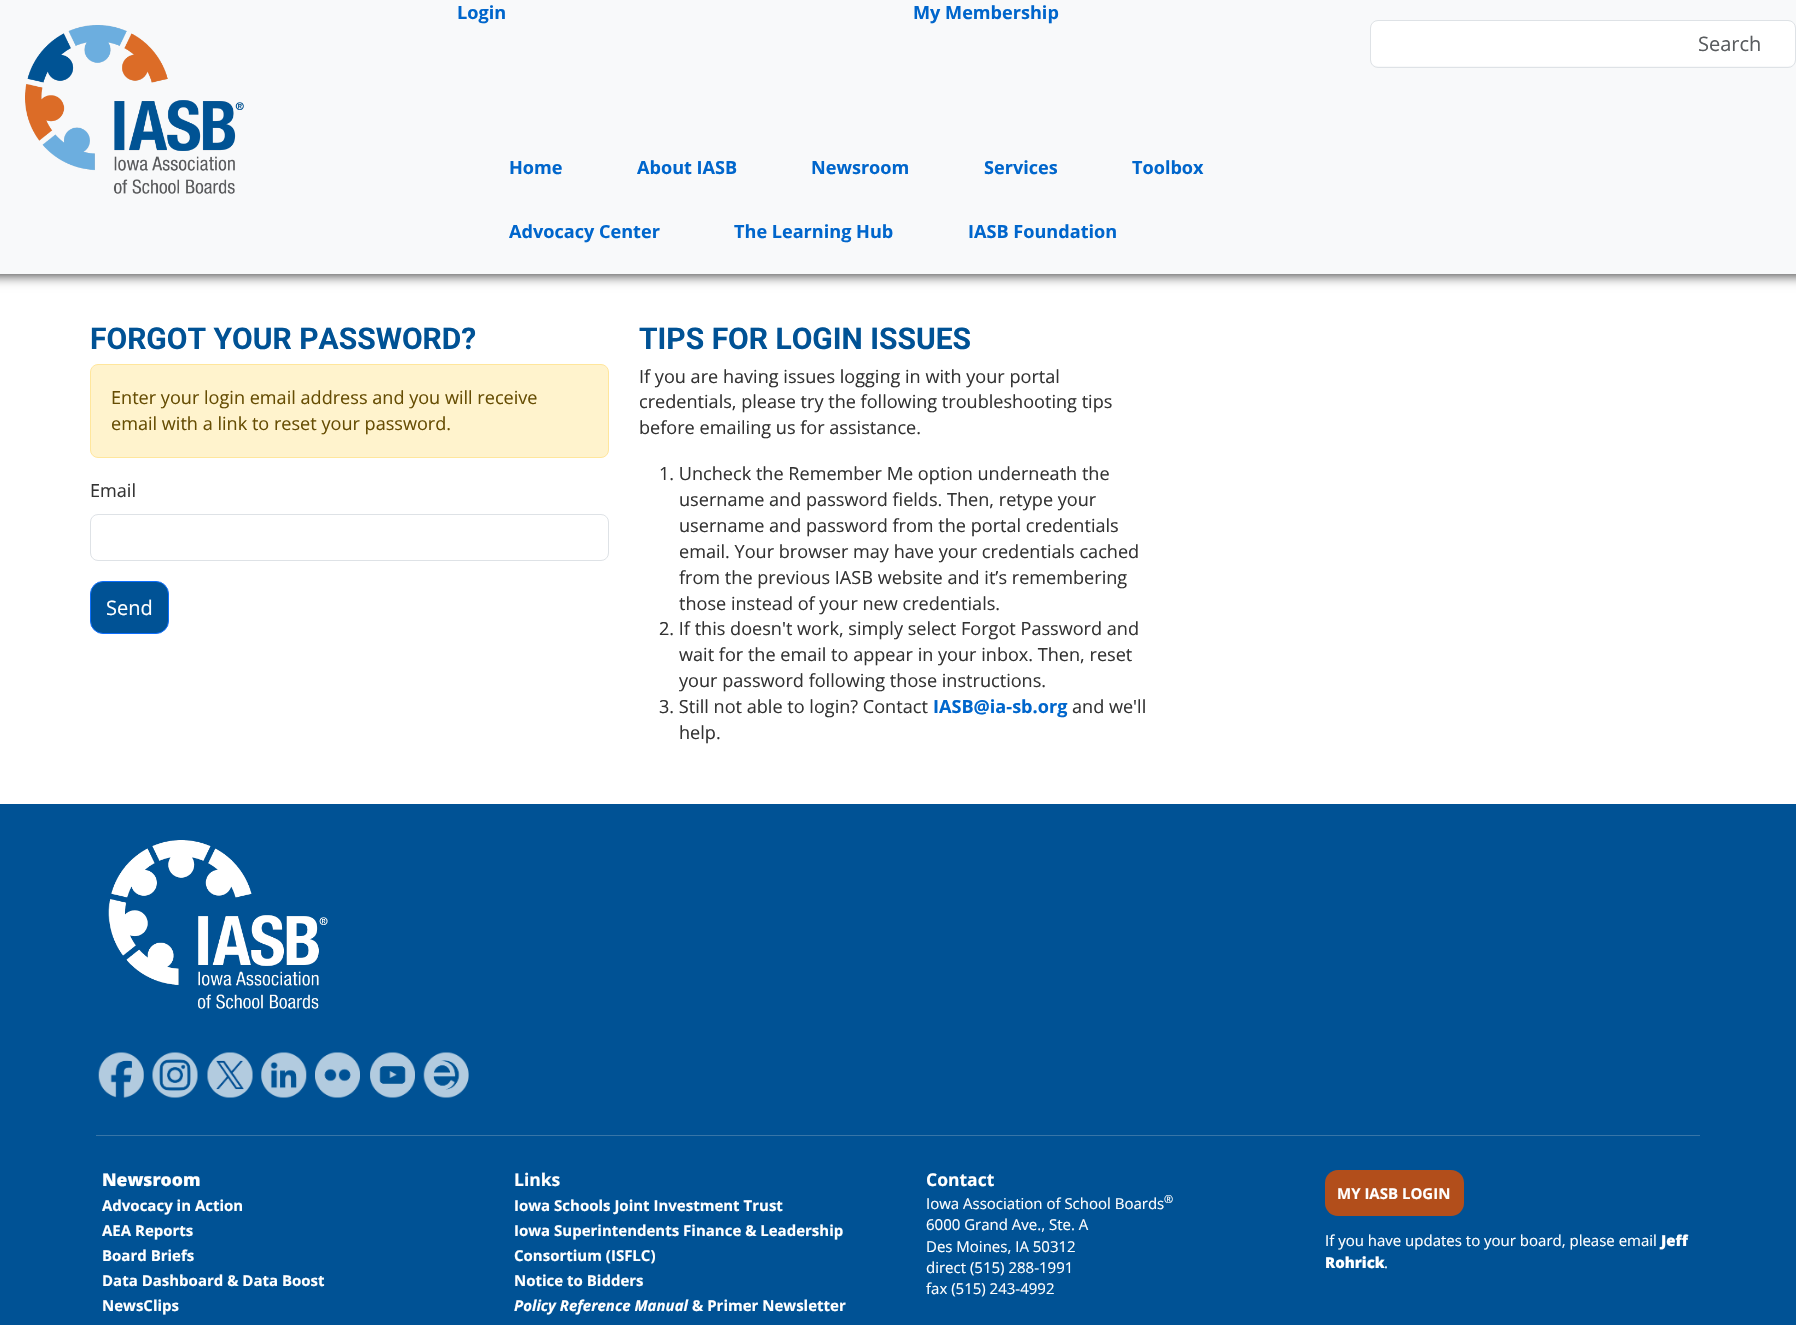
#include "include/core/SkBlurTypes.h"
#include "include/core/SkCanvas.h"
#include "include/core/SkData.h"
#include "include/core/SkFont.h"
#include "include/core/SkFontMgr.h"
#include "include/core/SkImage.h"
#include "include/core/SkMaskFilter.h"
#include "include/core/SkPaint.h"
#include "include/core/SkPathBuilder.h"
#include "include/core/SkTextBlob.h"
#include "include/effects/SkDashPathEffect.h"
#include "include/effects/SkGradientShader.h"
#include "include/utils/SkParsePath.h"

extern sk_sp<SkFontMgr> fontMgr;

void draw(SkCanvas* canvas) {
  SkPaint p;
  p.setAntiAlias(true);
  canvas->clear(SK_ColorWHITE);
  p.setColor(SkColorSetRGB(51, 51, 51));
  p.setMaskFilter(SkMaskFilter::MakeBlur(kNormal_SkBlurStyle, 6));
  canvas->drawRect(SkRect::MakeLTRB(-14, 1, 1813, 275), p);
  p.setMaskFilter(nullptr);
  p.setColor(SkColorSetRGB(248, 249, 250));
  canvas->drawRect(SkRect::MakeLTRB(0, 0, 1796, 274), p);
  canvas->drawImageRect(SkImages::DeferredFromEncodedData(SkData::MakeFromFileName("images/1.png")), SkRect::MakeLTRB(25, 25, 244, 194), SkSamplingOptions());
  p.setColor(SK_ColorWHITE);
  canvas->drawRoundRect(SkRect::MakeLTRB(1371, 21, 1795, 66), 6, 6, p);
  p.setStyle(SkPaint::kStroke_Style);
  p.setStrokeWidth(1);
  p.setColor(SkColorSetRGB(222, 226, 230));
  canvas->drawRoundRect(SkRect::MakeLTRB(1370.5f, 20.5f, 1795.5f, 67.5f), 7.5f, 7.5f, p);
  p.setStyle(SkPaint::kFill_Style);
  p.setColor(SkColorSetRGB(255, 243, 205));
  canvas->drawRoundRect(SkRect::MakeLTRB(90.5f, 364.5f, 608.5f, 457.5f), 7.5f, 7.5f, p);
  p.setStyle(SkPaint::kStroke_Style);
  p.setColor(SkColorSetRGB(255, 230, 156));
  canvas->drawRoundRect(SkRect::MakeLTRB(90.5f, 364.5f, 608.5f, 457.5f), 7.5f, 7.5f, p);
  p.setColor(SkColorSetRGB(222, 226, 230));
  canvas->drawRoundRect(SkRect::MakeLTRB(90.5f, 514.5f, 608.5f, 560.5f), 7.5f, 7.5f, p);
  p.setStyle(SkPaint::kFill_Style);
  p.setColor(SkColorSetRGB(0, 82, 149));
  canvas->drawRoundRect(SkRect::MakeLTRB(90.5f, 581.5f, 168.5f, 633.5f), 12.5f, 12.5f, p);
  p.setStyle(SkPaint::kStroke_Style);
  p.setColor(SkColorSetRGB(13, 110, 253));
  canvas->drawRoundRect(SkRect::MakeLTRB(90.5f, 581.5f, 168.5f, 633.5f), 12.5f, 12.5f, p);
  p.setStyle(SkPaint::kFill_Style);
  p.setColor(SkColorSetRGB(0, 82, 149));
  canvas->drawRect(SkRect::MakeLTRB(0, 804, 1796, 1325), p);
  canvas->drawImageRect(SkImages::DeferredFromEncodedData(SkData::MakeFromFileName("images/2.png")), SkRect::MakeLTRB(108, 840, 328, 1009), SkSamplingOptions());
  canvas->drawImageRect(SkImages::DeferredFromEncodedData(SkData::MakeFromFileName("images/3.png")), SkRect::MakeLTRB(98, 1052, 144, 1098), SkSamplingOptions());
  canvas->drawImageRect(SkImages::DeferredFromEncodedData(SkData::MakeFromFileName("images/4.png")), SkRect::MakeLTRB(152, 1052, 198, 1098), SkSamplingOptions());
  canvas->drawImageRect(SkImages::DeferredFromEncodedData(SkData::MakeFromFileName("images/5.png")), SkRect::MakeLTRB(207, 1052, 253, 1098), SkSamplingOptions());
  canvas->drawImageRect(SkImages::DeferredFromEncodedData(SkData::MakeFromFileName("images/6.png")), SkRect::MakeLTRB(261, 1052, 307, 1098), SkSamplingOptions());
  canvas->drawImageRect(SkImages::DeferredFromEncodedData(SkData::MakeFromFileName("images/7.png")), SkRect::MakeLTRB(315, 1052, 360, 1098), SkSamplingOptions());
  canvas->drawImageRect(SkImages::DeferredFromEncodedData(SkData::MakeFromFileName("images/8.png")), SkRect::MakeLTRB(370, 1052, 415, 1098), SkSamplingOptions());
  canvas->drawImageRect(SkImages::DeferredFromEncodedData(SkData::MakeFromFileName("images/9.png")), SkRect::MakeLTRB(423, 1052, 469, 1098), SkSamplingOptions());
  p.setColor(SkColorSetRGB(55, 117, 167));
  canvas->drawRect(SkRect::MakeLTRB(96, 1135, 1700, 1136), p);
  p.setColor(SkColorSetRGB(178, 78, 27));
  canvas->drawRoundRect(SkRect::MakeLTRB(1325, 1170, 1464, 1216), 13, 13, p);
  SkFont font1(fontMgr->matchFamilyStyle("Open Sans", SkFontStyle::Bold()), 18.1f);
  font1.setSubpixel(true);
  p.setColor(SkColorSetRGB(0, 102, 204));
  canvas->drawString("Login", 457, 19, font1, p);
  canvas->drawString("My Membership", 913, 19, font1, p);
  SkFont font2(fontMgr->matchFamilyStyle("Open Sans", SkFontStyle::Normal()), 20);
  font2.setSubpixel(true);
  p.setColor(SkColorSetRGB(89, 92, 95));
  canvas->drawString("Search", 1698, 51, font2, p);
  p.setColor(SkColorSetRGB(0, 102, 204));
  canvas->drawString("Home", 509, 174, font1, p);
  canvas->drawString("About IASB", 637, 174, font1, p);
  canvas->drawString("Newsroom", 811, 174, font1, p);
  canvas->drawString("Services", 984, 174, font1, p);
  canvas->drawString("Toolbox", 1132, 174, font1, p);
  canvas->drawString("Advocacy Center", 509, 238, font1, p);
  canvas->drawString("The Learning Hub", 734, 238, font1, p);
  canvas->drawString("IASB Foundation", 968, 238, font1, p);
  SkFont font3(fontMgr->matchFamilyStyle("Roboto", SkFontStyle::Bold()), 30);
  font3.setSubpixel(true);
  p.setColor(SkColorSetRGB(0, 82, 149));
  canvas->drawString("FORGOT YOUR PASSWORD?", 90, 349, font3, p);
  SkFont font4(fontMgr->matchFamilyStyle("Open Sans", SkFontStyle::Normal()), 18.1f);
  font4.setSubpixel(true);
  p.setColor(SkColorSetRGB(102, 77, 3));
  canvas->drawString("Enter your login email address and you will receive", 111, 404, font4, p);
  canvas->drawString("email with a link to reset your password.", 111, 430, font4, p);
  p.setColor(SkColorSetRGB(51, 51, 51));
  canvas->drawString("Email", 90, 497, font4, p);
  p.setColor(SK_ColorWHITE);
  canvas->drawString("Send", 106, 615, font2, p);
  p.setColor(SkColorSetRGB(0, 82, 149));
  canvas->drawString("TIPS FOR LOGIN ISSUES", 639, 349, font3, p);
  p.setColor(SkColorSetRGB(51, 51, 51));
  canvas->drawString("If you are having issues logging in with your portal", 639, 383, font4, p);
  canvas->drawString("credentials, please try the following troubleshooting tips", 639, 408, font4, p);
  canvas->drawString("before emailing us for assistance.", 639, 434, font4, p);
  canvas->drawString("1. Uncheck the Remember Me option underneath the", 659, 480, font4, p);
  canvas->drawString("username and password fields. Then, retype your", 679, 506, font4, p);
  canvas->drawString("username and password from the portal credentials", 679, 532, font4, p);
  canvas->drawString("email. Your browser may have your credentials cached", 679, 558, font4, p);
  canvas->drawString("from the previous IASB website and it’s remembering", 679, 584, font4, p);
  canvas->drawString("those instead of your new credentials.", 679, 610, font4, p);
  canvas->drawString("2. If this doesn't work, simply select Forgot Password and", 659, 635, font4, p);
  canvas->drawString("wait for the email to appear in your inbox. Then, reset", 679, 661, font4, p);
  canvas->drawString("your password following those instructions.", 679, 687, font4, p);
  canvas->drawString("3. Still not able to login? Contact", 659, 713, font4, p);
  p.setColor(SkColorSetRGB(0, 102, 204));
  canvas->drawString("IASB@ia-sb.org", 933, 713, font1, p);
  p.setColor(SkColorSetRGB(51, 51, 51));
  canvas->drawString("and we'll", 1072, 713, font4, p);
  canvas->drawString("help.", 679, 739, font4, p);
  SkFont font5(fontMgr->matchFamilyStyle("Open Sans", SkFontStyle(800, SkFontStyle::kNormal_Width, SkFontStyle::kUpright_Slant)), 17.5f);
  font5.setSubpixel(true);
  p.setColor(SK_ColorWHITE);
  canvas->drawString("Newsroom", 102, 1186, font5, p);
  SkFont font6(fontMgr->matchFamilyStyle("Open Sans", SkFontStyle::Bold()), 15);
  font6.setSubpixel(true);
  canvas->drawString("Advocacy in Action", 102, 1211, font6, p);
  canvas->drawString("AEA Reports", 102, 1236, font6, p);
  canvas->drawString("Board Briefs", 102, 1261, font6, p);
  canvas->drawString("Data Dashboard & Data Boost", 102, 1286, font6, p);
  canvas->drawString("NewsClips", 102, 1311, font6, p);
  SkFont font7(fontMgr->matchFamilyStyle("Open Sans", SkFontStyle::Bold()), 17.5f);
  font7.setSubpixel(true);
  canvas->drawString("Links", 514, 1186, font7, p);
  canvas->drawString("Iowa Schools Joint Investment Trust", 514, 1211, font6, p);
  canvas->drawString("Iowa Superintendents Finance & Leadership", 514, 1236, font6, p);
  canvas->drawString("Consortium (ISFLC)", 514, 1261, font6, p);
  canvas->drawString("Notice to Bidders", 514, 1286, font6, p);
  SkFont font8(fontMgr->matchFamilyStyle("Open Sans", SkFontStyle::BoldItalic()), 15);
  font8.setSubpixel(true);
  canvas->drawString("Policy Reference Manual", 514, 1311, font8, p);
  canvas->drawString("& Primer Newsletter", 692, 1311, font6, p);
  canvas->drawString("Contact", 926, 1186, font7, p);
  SkFont font9(fontMgr->matchFamilyStyle("Open Sans", SkFontStyle::Normal()), 15);
  font9.setSubpixel(true);
  canvas->drawString("Iowa Association of School Boards", 926, 1209, font9, p);
  SkFont font10(fontMgr->matchFamilyStyle("Open Sans", SkFontStyle::Normal()), 11);
  font10.setSubpixel(true);
  canvas->drawString("®", 1164, 1203, font10, p);
  canvas->drawString("6000 Grand Ave., Ste. A", 926, 1230, font9, p);
  canvas->drawString("Des Moines, IA 50312", 926, 1252, font9, p);
  canvas->drawString("direct (515) 288-1991", 926, 1273, font9, p);
  canvas->drawString("fax (515) 243-4992", 926, 1294, font9, p);
  canvas->drawString("MY IASB LOGIN", 1337, 1199, font6, p);
  canvas->drawString("If you have updates to your board, please email", 1325, 1246, font9, p);
  SkFont font11(fontMgr->matchFamilyStyle("Open Sans", SkFontStyle(800, SkFontStyle::kNormal_Width, SkFontStyle::kUpright_Slant)), 15);
  font11.setSubpixel(true);
  canvas->drawString("Jeff", 1661, 1246, font11, p);
  canvas->drawString("Rohrick", 1325, 1268, font11, p);
  canvas->drawString(".", 1384, 1268, font9, p);
}
